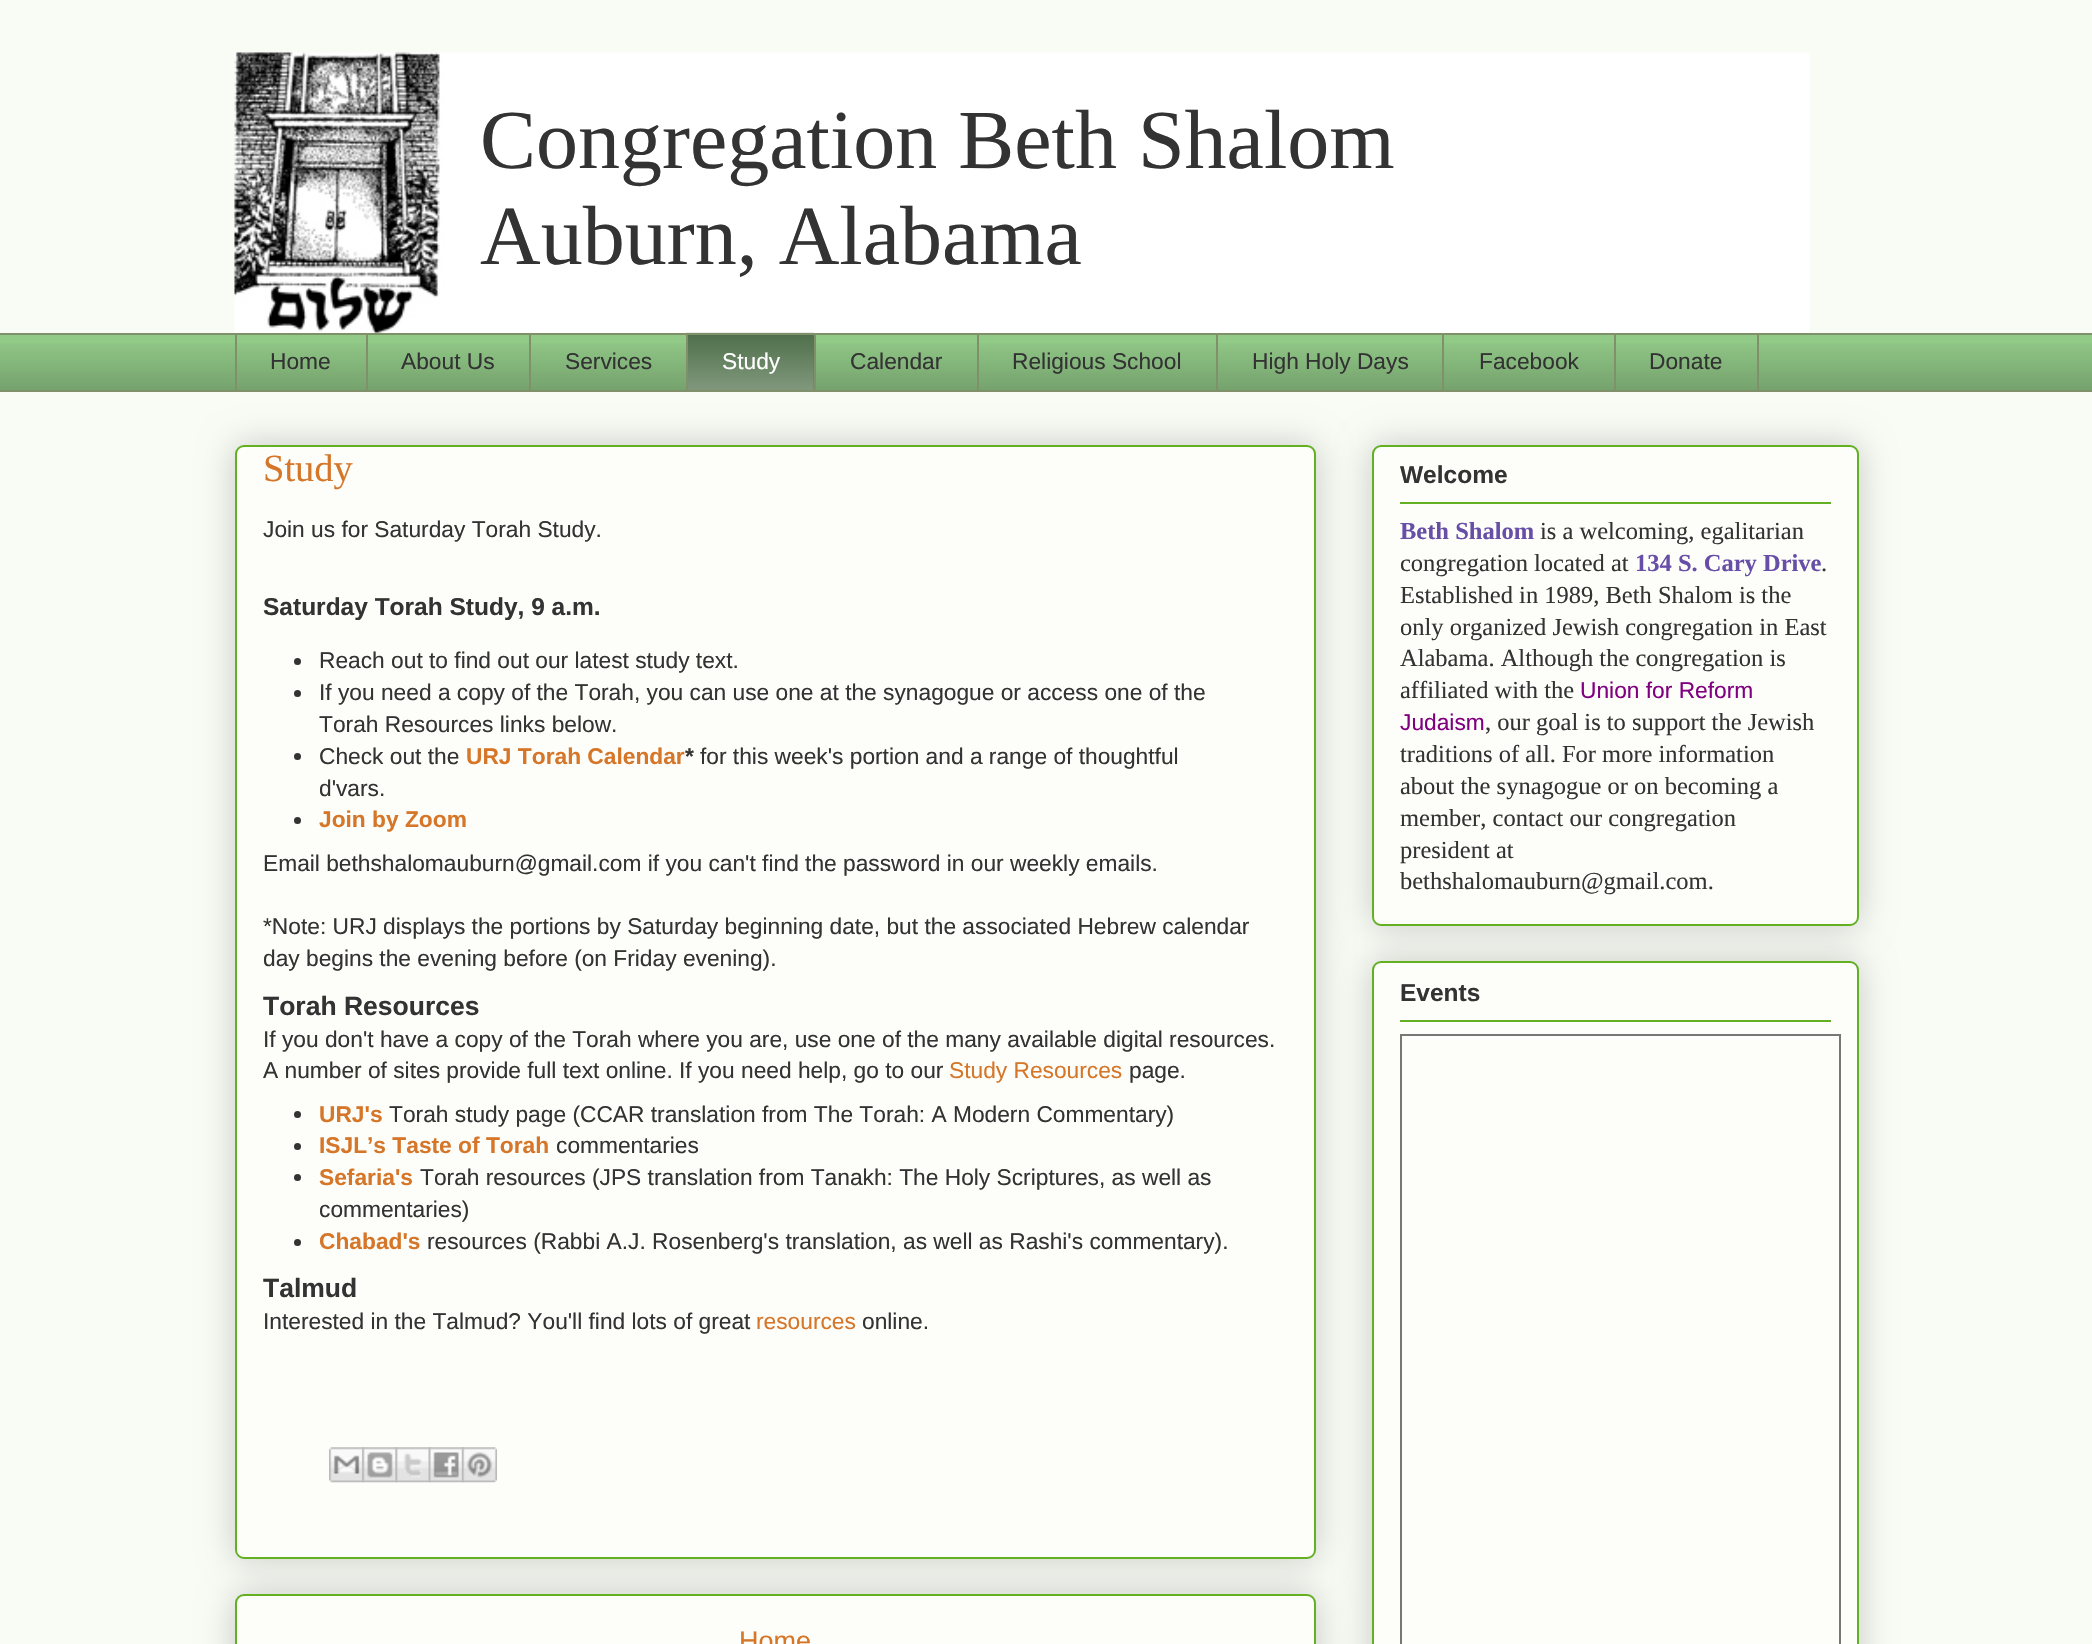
#include "include/core/SkBlurTypes.h"
#include "include/core/SkCanvas.h"
#include "include/core/SkData.h"
#include "include/core/SkFont.h"
#include "include/core/SkFontMgr.h"
#include "include/core/SkImage.h"
#include "include/core/SkMaskFilter.h"
#include "include/core/SkPaint.h"
#include "include/core/SkPathBuilder.h"
#include "include/core/SkTextBlob.h"
#include "include/effects/SkDashPathEffect.h"
#include "include/effects/SkGradientShader.h"
#include "include/utils/SkParsePath.h"

extern sk_sp<SkFontMgr> fontMgr;

void draw(SkCanvas* canvas) {
  SkPaint p;
  p.setAntiAlias(true);
  canvas->clear(SkColorSetRGB(249, 252, 245));
  canvas->drawImageRect(SkImages::DeferredFromEncodedData(SkData::MakeFromFileName("images/1.png")), SkRect::MakeLTRB(234, 52, 1810, 333), SkSamplingOptions());
  p.setColor(SkColorSetRGB(146, 202, 136));
  canvas->drawRect(SkRect::MakeLTRB(0, 335, 2092, 390), p);
  canvas->drawImageRect(SkImages::DeferredFromEncodedData(SkData::MakeFromFileName("images/2.png")), SkRect::MakeLTRB(0, 343, 2092, 390), SkSamplingOptions());
  p.setColor(SkColorSetRGB(128, 144, 106));
  canvas->drawRect(SkRect::MakeLTRB(0, 333, 2092, 335), p);
  canvas->drawRect(SkRect::MakeLTRB(235, 333, 237, 392), p);
  canvas->drawRect(SkRect::MakeLTRB(366, 333, 368, 392), p);
  canvas->drawRect(SkRect::MakeLTRB(529, 333, 531, 392), p);
  p.setColor(SkColorSetRGB(80, 112, 75));
  canvas->drawRect(SkRect::MakeLTRB(688, 335, 814, 390), p);
  canvas->drawImageRect(SkImages::DeferredFromEncodedData(SkData::MakeFromFileName("images/3.png")), SkRect::MakeLTRB(686, 332, 814, 390), SkSamplingOptions());
  p.setColor(SkColorSetRGB(128, 144, 106));
  canvas->drawRect(SkRect::MakeLTRB(686, 333, 814, 335), p);
  canvas->drawRect(SkRect::MakeLTRB(686, 333, 688, 392), p);
  canvas->drawRect(SkRect::MakeLTRB(814, 333, 816, 392), p);
  canvas->drawRect(SkRect::MakeLTRB(977, 333, 979, 392), p);
  canvas->drawRect(SkRect::MakeLTRB(1216, 333, 1218, 392), p);
  canvas->drawRect(SkRect::MakeLTRB(1442, 333, 1444, 392), p);
  p.setStyle(SkPaint::kStroke_Style);
  p.setStrokeWidth(2);
  canvas->drawRect(SkRect::MakeLTRB(1615, 334, 1758, 391), p);
  p.setStyle(SkPaint::kFill_Style);
  canvas->drawRect(SkRect::MakeLTRB(0, 390, 2092, 392), p);
  p.setColor(SkColorSetARGB(51, 0, 0, 0));
  p.setMaskFilter(SkMaskFilter::MakeBlur(kNormal_SkBlurStyle, 17.5f));
  canvas->drawRoundRect(SkRect::MakeLTRB(235, 1594, 1316, 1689), 9, 9, p);
  p.setMaskFilter(nullptr);
  p.setColor(SkColorSetRGB(253, 254, 250));
  canvas->drawRoundRect(SkRect::MakeLTRB(236, 1595, 1315, 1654), 8, 8, p);
  p.setStyle(SkPaint::kStroke_Style);
  p.setColor(SkColorSetRGB(99, 177, 34));
  canvas->drawRoundRect(SkRect::MakeLTRB(236, 1595, 1315, 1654), 8, 8, p);
  p.setStyle(SkPaint::kFill_Style);
  p.setColor(SkColorSetARGB(51, 0, 0, 0));
  p.setMaskFilter(SkMaskFilter::MakeBlur(kNormal_SkBlurStyle, 17.5f));
  canvas->drawRoundRect(SkRect::MakeLTRB(235, 445, 1316, 1559), 9, 9, p);
  p.setMaskFilter(nullptr);
  p.setColor(SkColorSetRGB(253, 254, 250));
  canvas->drawRoundRect(SkRect::MakeLTRB(236, 446, 1315, 1558), 8, 8, p);
  p.setStyle(SkPaint::kStroke_Style);
  p.setColor(SkColorSetRGB(99, 177, 34));
  canvas->drawRoundRect(SkRect::MakeLTRB(236, 446, 1315, 1558), 8, 8, p);
  p.setStyle(SkPaint::kFill_Style);
  p.setColor(SkColorSetRGB(51, 51, 51));
  canvas->drawCircle(297.5f, 661.5f, 3.5f, p);
  canvas->drawCircle(297.5f, 693.5f, 3.5f, p);
  canvas->drawCircle(297.5f, 756.5f, 3.5f, p);
  canvas->drawCircle(297.5f, 820.5f, 3.5f, p);
  canvas->drawCircle(297.5f, 1114.5f, 3.5f, p);
  canvas->drawCircle(297.5f, 1146.5f, 3.5f, p);
  canvas->drawCircle(297.5f, 1177.5f, 3.5f, p);
  canvas->drawCircle(297.5f, 1242.5f, 3.5f, p);
  canvas->drawImageRect(SkImages::DeferredFromEncodedData(SkData::MakeFromFileName("images/4.png")), SkRect::MakeLTRB(329, 1447, 364, 1483), SkSamplingOptions());
  canvas->drawImageRect(SkImages::DeferredFromEncodedData(SkData::MakeFromFileName("images/5.png")), SkRect::MakeLTRB(362, 1447, 398, 1483), SkSamplingOptions());
  canvas->drawImageRect(SkImages::DeferredFromEncodedData(SkData::MakeFromFileName("images/6.png")), SkRect::MakeLTRB(395, 1447, 431, 1483), SkSamplingOptions());
  canvas->drawImageRect(SkImages::DeferredFromEncodedData(SkData::MakeFromFileName("images/7.png")), SkRect::MakeLTRB(428, 1447, 464, 1483), SkSamplingOptions());
  canvas->drawImageRect(SkImages::DeferredFromEncodedData(SkData::MakeFromFileName("images/8.png")), SkRect::MakeLTRB(462, 1447, 497, 1483), SkSamplingOptions());
  p.setColor(SkColorSetARGB(51, 0, 0, 0));
  p.setMaskFilter(SkMaskFilter::MakeBlur(kNormal_SkBlurStyle, 17.5f));
  canvas->drawRoundRect(SkRect::MakeLTRB(1372, 445, 1859, 926), 9, 9, p);
  p.setMaskFilter(nullptr);
  p.setColor(SkColorSetRGB(253, 254, 250));
  canvas->drawRoundRect(SkRect::MakeLTRB(1373, 446, 1858, 925), 8, 8, p);
  p.setStyle(SkPaint::kStroke_Style);
  p.setColor(SkColorSetRGB(99, 177, 34));
  canvas->drawRoundRect(SkRect::MakeLTRB(1373, 446, 1858, 925), 8, 8, p);
  p.setStyle(SkPaint::kFill_Style);
  canvas->drawRect(SkRect::MakeLTRB(1400, 502, 1831, 504), p);
  p.setColor(SkColorSetARGB(51, 0, 0, 0));
  p.setMaskFilter(SkMaskFilter::MakeBlur(kNormal_SkBlurStyle, 17.5f));
  canvas->drawRoundRect(SkRect::MakeLTRB(1372, 961, 1859, 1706), 9, 9, p);
  p.setMaskFilter(nullptr);
  p.setColor(SkColorSetRGB(253, 254, 250));
  canvas->drawRoundRect(SkRect::MakeLTRB(1373, 962, 1858, 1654), 8, 8, p);
  p.setStyle(SkPaint::kStroke_Style);
  p.setColor(SkColorSetRGB(99, 177, 34));
  canvas->drawRoundRect(SkRect::MakeLTRB(1373, 962, 1858, 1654), 8, 8, p);
  p.setStyle(SkPaint::kFill_Style);
  canvas->drawRect(SkRect::MakeLTRB(1400, 1020, 1831, 1022), p);
  p.setStyle(SkPaint::kStroke_Style);
  p.setColor(SkColorSetRGB(119, 119, 119));
  canvas->drawRect(SkRect::MakeLTRB(1401, 1035, 1840, 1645), p);
  SkFont font1(fontMgr->matchFamilyStyle("Liberation Serif", SkFontStyle::Normal()), 84);
  font1.setSubpixel(true);
  p.setStyle(SkPaint::kFill_Style);
  p.setColor(SkColorSetRGB(51, 51, 51));
  canvas->drawString("Congregation Beth Shalom", 480, 168, font1, p);
  canvas->drawString("Auburn, Alabama", 480, 264, font1, p);
  SkFont font2(fontMgr->matchFamilyStyle("Liberation Sans", SkFontStyle::Normal()), 22.75f);
  font2.setSubpixel(true);
  canvas->drawString("Home", 270, 369, font2, p);
  canvas->drawString("About Us", 401, 369, font2, p);
  canvas->drawString("Services", 565, 369, font2, p);
  p.setColor(SK_ColorWHITE);
  canvas->drawString("Study", 722, 369, font2, p);
  p.setColor(SkColorSetRGB(51, 51, 51));
  canvas->drawString("Calendar", 850, 369, font2, p);
  canvas->drawString("Religious School", 1012, 369, font2, p);
  canvas->drawString("High Holy Days", 1252, 369, font2, p);
  canvas->drawString("Facebook", 1479, 369, font2, p);
  canvas->drawString("Donate", 1649, 369, font2, p);
  SkFont font3(fontMgr->matchFamilyStyle("Liberation Serif", SkFontStyle::Normal()), 38.5f);
  font3.setSubpixel(true);
  p.setColor(SkColorSetRGB(213, 118, 41));
  canvas->drawString("Study", 263, 481, font3, p);
  p.setColor(SkColorSetRGB(51, 51, 51));
  canvas->drawString("Join us for Saturday Torah Study.", 263, 537, font2, p);
  SkFont font4(fontMgr->matchFamilyStyle("Liberation Sans", SkFontStyle::Bold()), 24.5f);
  font4.setSubpixel(true);
  canvas->drawString("Saturday Torah Study, 9 a.m.", 263, 615, font4, p);
  canvas->drawString("Reach out to find out our latest study text.", 319, 668, font2, p);
  canvas->drawString("If you need a copy of the Torah, you can use one at the synagogue or access one of the", 319, 700, font2, p);
  canvas->drawString("Torah Resources links below.", 319, 732, font2, p);
  canvas->drawString("Check out the", 319, 764, font2, p);
  SkFont font5(fontMgr->matchFamilyStyle("Liberation Sans", SkFontStyle::Bold()), 22.75f);
  font5.setSubpixel(true);
  p.setColor(SkColorSetRGB(213, 118, 41));
  canvas->drawString("URJ Torah Calendar", 466, 764, font5, p);
  p.setColor(SkColorSetRGB(51, 51, 51));
  canvas->drawString("*", 685, 764, font5, p);
  canvas->drawString("for this week's portion and a range of thoughtful", 700, 764, font2, p);
  canvas->drawString("d'vars.", 319, 796, font2, p);
  p.setColor(SkColorSetRGB(213, 118, 41));
  canvas->drawString("Join by Zoom", 319, 827, font5, p);
  p.setColor(SkColorSetRGB(51, 51, 51));
  canvas->drawString("Email bethshalomauburn@gmail.com if you can't find the password in our weekly emails.", 263, 871, font2, p);
  canvas->drawString("*Note: URJ displays the portions by Saturday beginning date, but the associated Hebrew calendar", 263, 934, font2, p);
  canvas->drawString("day begins the evening before (on Friday evening).", 263, 966, font2, p);
  SkFont font6(fontMgr->matchFamilyStyle("Liberation Sans", SkFontStyle::Bold()), 26.5f);
  font6.setSubpixel(true);
  canvas->drawString("Torah Resources", 263, 1015, font6, p);
  canvas->drawString("If you don't have a copy of the Torah where you are, use one of the many available digital resources.", 263, 1047, font2, p);
  canvas->drawString("A number of sites provide full text online. If you need help, go to our", 263, 1078, font2, p);
  p.setColor(SkColorSetRGB(213, 118, 41));
  canvas->drawString("Study Resources", 949, 1078, font2, p);
  p.setColor(SkColorSetRGB(51, 51, 51));
  canvas->drawString("page.", 1129, 1078, font2, p);
  p.setColor(SkColorSetRGB(213, 118, 41));
  canvas->drawString("URJ's", 319, 1122, font5, p);
  p.setColor(SkColorSetRGB(51, 51, 51));
  canvas->drawString("Torah study page (CCAR translation from The Torah: A Modern Commentary)", 389, 1122, font2, p);
  p.setColor(SkColorSetRGB(213, 118, 41));
  canvas->drawString("ISJL’s Taste of Torah", 319, 1153, font5, p);
  p.setColor(SkColorSetRGB(51, 51, 51));
  canvas->drawString("commentaries", 556, 1153, font2, p);
  p.setColor(SkColorSetRGB(213, 118, 41));
  canvas->drawString("Sefaria's", 319, 1185, font5, p);
  p.setColor(SkColorSetRGB(51, 51, 51));
  canvas->drawString("Torah resources (JPS translation from Tanakh: The Holy Scriptures, as well as", 420, 1185, font2, p);
  canvas->drawString("commentaries)", 319, 1217, font2, p);
  p.setColor(SkColorSetRGB(213, 118, 41));
  canvas->drawString("Chabad's", 319, 1249, font5, p);
  p.setColor(SkColorSetRGB(51, 51, 51));
  canvas->drawString("resources (Rabbi A.J. Rosenberg's translation, as well as Rashi's commentary).", 427, 1249, font2, p);
  canvas->drawString("Talmud", 263, 1297, font6, p);
  canvas->drawString("Interested in the Talmud? You'll find lots of great", 263, 1329, font2, p);
  p.setColor(SkColorSetRGB(213, 118, 41));
  canvas->drawString("resources", 756, 1329, font2, p);
  p.setColor(SkColorSetRGB(51, 51, 51));
  canvas->drawString("online.", 862, 1329, font2, p);
  SkFont font7(fontMgr->matchFamilyStyle("Liberation Sans", SkFontStyle::Normal()), 27);
  font7.setSubpixel(true);
  p.setColor(SkColorSetRGB(213, 118, 41));
  canvas->drawString("Home", 739, 1650, font7, p);
  p.setColor(SkColorSetRGB(51, 51, 51));
  canvas->drawString("Welcome", 1400, 483, font4, p);
  SkFont font8(fontMgr->matchFamilyStyle("Liberation Serif", SkFontStyle::Bold()), 24.5f);
  font8.setSubpixel(true);
  p.setColor(SkColorSetRGB(103, 78, 167));
  canvas->drawString("Beth Shalom", 1400, 539, font8, p);
  SkFont font9(fontMgr->matchFamilyStyle("Liberation Serif", SkFontStyle::Normal()), 24.5f);
  font9.setSubpixel(true);
  p.setColor(SkColorSetRGB(51, 51, 51));
  canvas->drawString("is a welcoming, egalitarian", 1540, 539, font9, p);
  canvas->drawString("congregation located at", 1400, 571, font9, p);
  p.setColor(SkColorSetRGB(103, 78, 167));
  canvas->drawString("134 S. Cary Drive", 1635, 571, font8, p);
  p.setColor(SkColorSetRGB(51, 51, 51));
  canvas->drawString(".", 1821, 571, font9, p);
  canvas->drawString("Established in 1989, Beth Shalom is the", 1400, 603, font9, p);
  canvas->drawString("only organized Jewish congregation in East", 1400, 635, font9, p);
  canvas->drawString("Alabama. Although the congregation is", 1400, 666, font9, p);
  canvas->drawString("affiliated with the", 1400, 698, font9, p);
  p.setColor(SkColorSetRGB(128, 0, 128));
  canvas->drawString("Union for Reform", 1580, 698, font2, p);
  canvas->drawString("Judaism", 1400, 730, font2, p);
  p.setColor(SkColorSetRGB(51, 51, 51));
  canvas->drawString(", our goal is to support the Jewish", 1485, 730, font9, p);
  canvas->drawString("traditions of all. For more information", 1400, 762, font9, p);
  canvas->drawString("about the synagogue or on becoming a", 1400, 794, font9, p);
  canvas->drawString("member, contact our congregation", 1400, 826, font9, p);
  canvas->drawString("president at", 1400, 858, font9, p);
  canvas->drawString("bethshalomauburn@gmail.com.", 1400, 889, font9, p);
  canvas->drawString("Events", 1400, 1001, font4, p);
}
